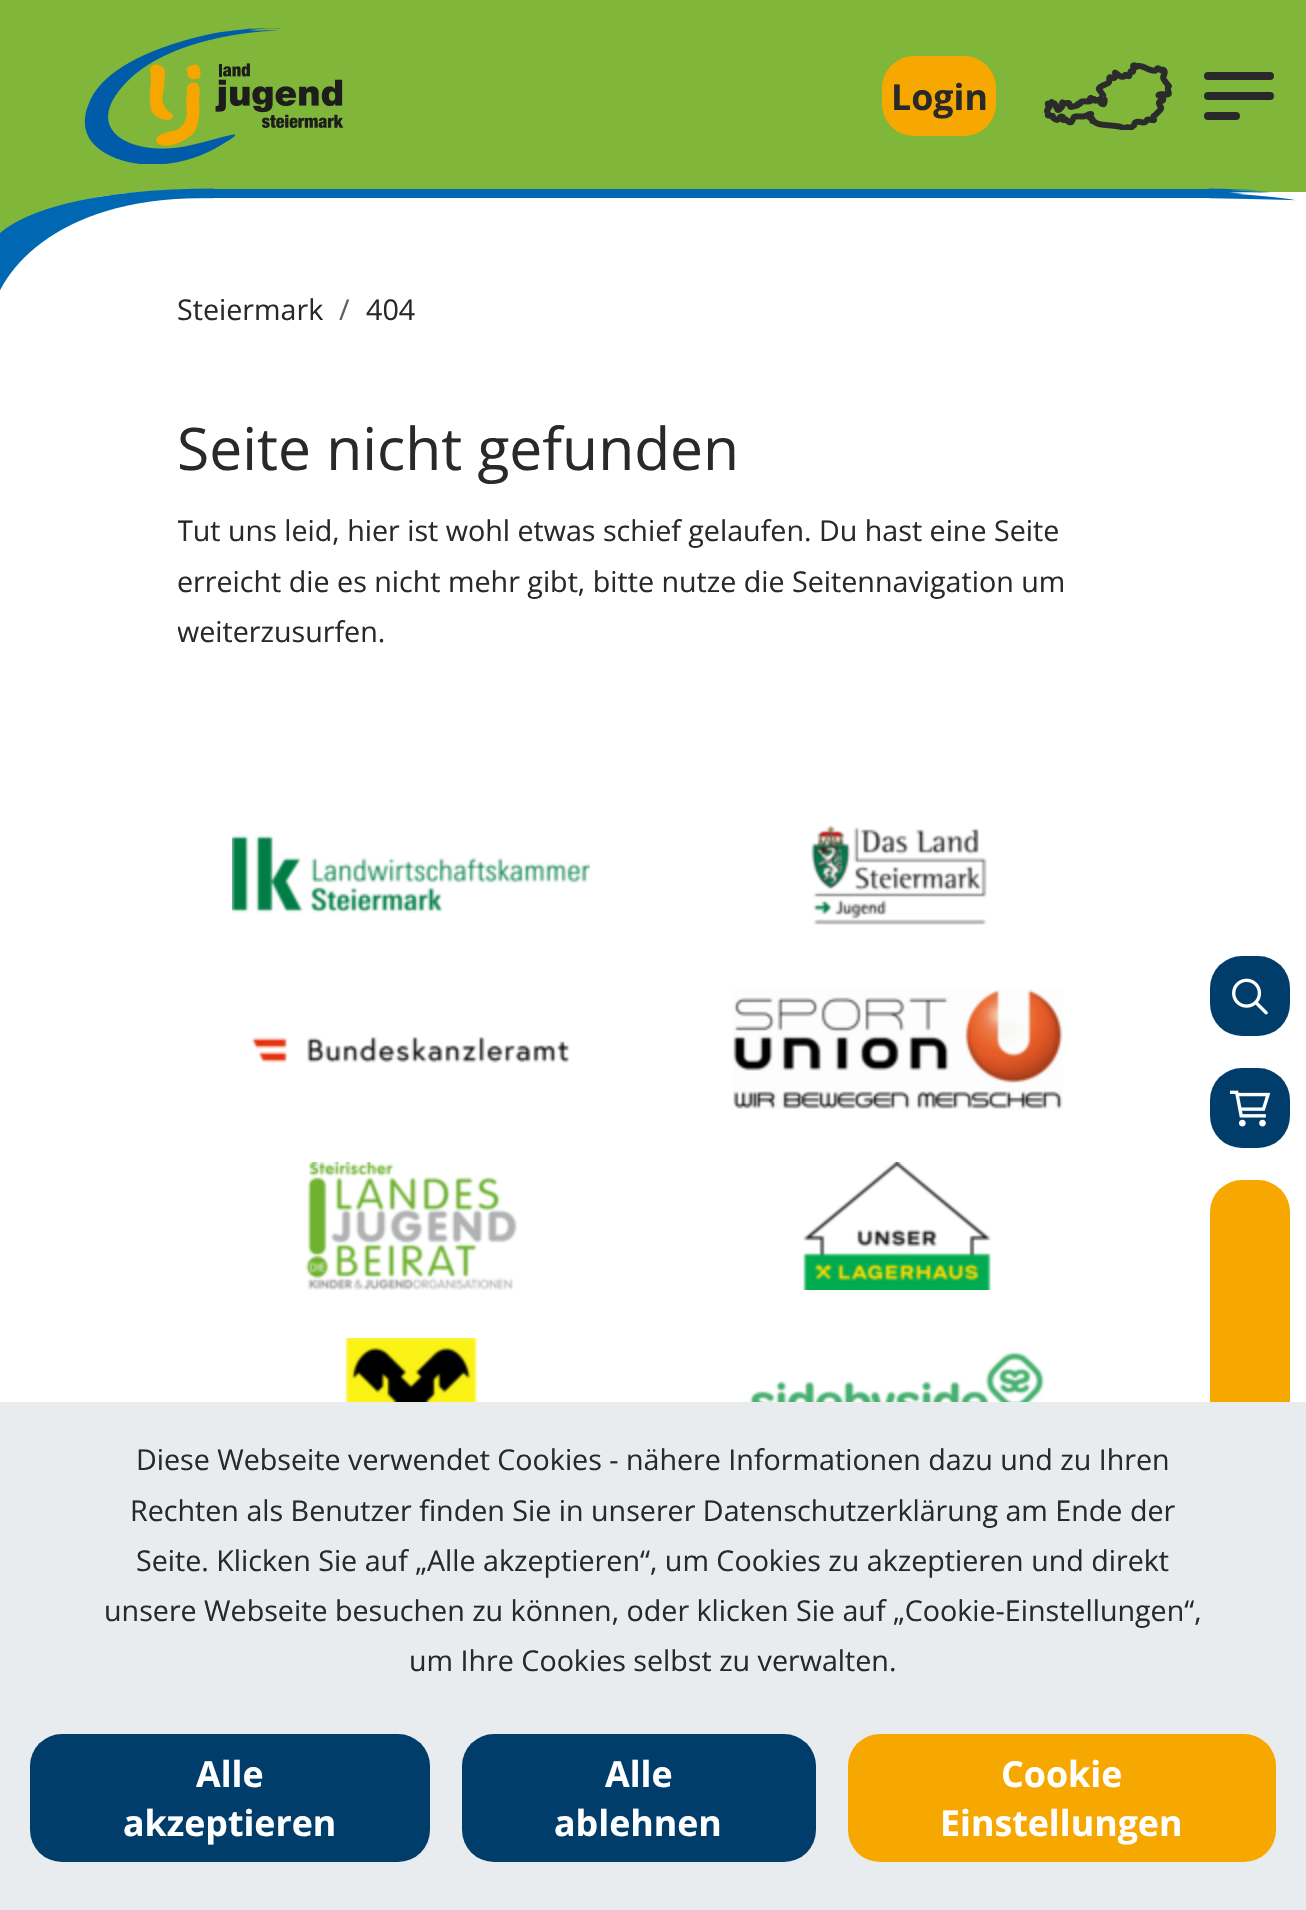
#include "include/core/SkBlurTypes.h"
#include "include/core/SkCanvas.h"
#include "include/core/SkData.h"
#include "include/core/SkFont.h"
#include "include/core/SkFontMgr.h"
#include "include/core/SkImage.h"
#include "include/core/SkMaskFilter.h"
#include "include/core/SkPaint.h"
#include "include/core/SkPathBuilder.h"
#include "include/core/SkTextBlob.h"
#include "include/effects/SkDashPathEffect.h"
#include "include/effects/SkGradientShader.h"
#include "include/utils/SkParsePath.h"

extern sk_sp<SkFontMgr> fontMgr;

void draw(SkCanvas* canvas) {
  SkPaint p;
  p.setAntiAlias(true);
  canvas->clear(SK_ColorWHITE);
  p.setColor(SkColorSetRGB(128, 182, 57));
  canvas->drawRect(SkRect::MakeLTRB(0, 0, 1306, 192), p);
  canvas->drawImageRect(SkImages::DeferredFromEncodedData(SkData::MakeFromFileName("images/1.png")), SkRect::MakeLTRB(84, 28, 344, 164), SkSamplingOptions());
  p.setColor(SkColorSetRGB(247, 168, 0));
  canvas->drawRoundRect(SkRect::MakeLTRB(882, 56, 996, 136), 32, 32, p);
  canvas->drawImageRect(SkImages::DeferredFromEncodedData(SkData::MakeFromFileName("images/2.png")), SkRect::MakeLTRB(1044, 62, 1172, 130), SkSamplingOptions());
  p.setColor(SkColorSetRGB(41, 41, 41));
  canvas->drawRoundRect(SkRect::MakeLTRB(1204, 72, 1274, 80), 4, 4, p);
  canvas->drawRoundRect(SkRect::MakeLTRB(1204, 92, 1274, 100), 4, 4, p);
  canvas->drawRoundRect(SkRect::MakeLTRB(1204, 112, 1240, 120), 4, 4, p);
  canvas->drawImageRect(SkImages::DeferredFromEncodedData(SkData::MakeFromFileName("images/3.png")), SkRect::MakeLTRB(0, 188, 1296, 291), SkSamplingOptions());
  canvas->drawImageRect(SkImages::DeferredFromEncodedData(SkData::MakeFromFileName("images/4.png")), SkRect::MakeLTRB(232, 835, 590, 913), SkSamplingOptions());
  canvas->drawImageRect(SkImages::DeferredFromEncodedData(SkData::MakeFromFileName("images/5.png")), SkRect::MakeLTRB(811, 825, 987, 925), SkSamplingOptions());
  canvas->drawImageRect(SkImages::DeferredFromEncodedData(SkData::MakeFromFileName("images/6.png")), SkRect::MakeLTRB(251, 1036, 570, 1063), SkSamplingOptions());
  canvas->drawImageRect(SkImages::DeferredFromEncodedData(SkData::MakeFromFileName("images/7.png")), SkRect::MakeLTRB(733, 989, 1063, 1109), SkSamplingOptions());
  canvas->drawImageRect(SkImages::DeferredFromEncodedData(SkData::MakeFromFileName("images/8.png")), SkRect::MakeLTRB(305, 1162, 517, 1290), SkSamplingOptions());
  canvas->drawImageRect(SkImages::DeferredFromEncodedData(SkData::MakeFromFileName("images/9.png")), SkRect::MakeLTRB(803, 1162, 991, 1290), SkSamplingOptions());
  canvas->drawImageRect(SkImages::DeferredFromEncodedData(SkData::MakeFromFileName("images/10.png")), SkRect::MakeLTRB(345, 1338, 478, 1402), SkSamplingOptions());
  canvas->drawImageRect(SkImages::DeferredFromEncodedData(SkData::MakeFromFileName("images/11.png")), SkRect::MakeLTRB(749, 1351, 1045, 1402), SkSamplingOptions());
  p.setColor(SkColorSetRGB(0, 61, 107));
  canvas->drawRoundRect(SkRect::MakeLTRB(1210, 956, 1290, 1036), 32, 32, p);
  canvas->drawImageRect(SkImages::DeferredFromEncodedData(SkData::MakeFromFileName("images/12.png")), SkRect::MakeLTRB(1232, 978, 1268, 1015), SkSamplingOptions());
  canvas->drawRoundRect(SkRect::MakeLTRB(1210, 1068, 1290, 1148), 32, 32, p);
  canvas->drawImageRect(SkImages::DeferredFromEncodedData(SkData::MakeFromFileName("images/13.png")), SkRect::MakeLTRB(1230, 1090, 1271, 1127), SkSamplingOptions());
  p.setColor(SkColorSetRGB(247, 168, 0));
  canvas->drawRoundRect(SkRect::MakeLTRB(1210, 1180, 1290, 1534), 32, 32, p);
  p.setColor(SkColorSetRGB(233, 236, 239));
  canvas->drawRect(SkRect::MakeLTRB(0, 1402, 1306, 1910), p);
  p.setColor(SkColorSetRGB(0, 61, 107));
  canvas->drawRoundRect(SkRect::MakeLTRB(30, 1734, 430, 1862), 32, 32, p);
  canvas->drawRoundRect(SkRect::MakeLTRB(462, 1734, 816, 1862), 32, 32, p);
  p.setColor(SkColorSetRGB(247, 168, 0));
  canvas->drawRoundRect(SkRect::MakeLTRB(848, 1734, 1276, 1862), 32, 32, p);
  SkFont font1(fontMgr->matchFamilyStyle("Open Sans", SkFontStyle::Bold()), 35.75f);
  font1.setSubpixel(true);
  p.setColor(SkColorSetRGB(41, 41, 41));
  canvas->drawString("Login", 891, 110, font1, p);
  SkFont font2(fontMgr->matchFamilyStyle("Open Sans", SkFontStyle::Normal()), 28.65f);
  font2.setSubpixel(true);
  canvas->drawString("Steiermark", 177, 320, font2, p);
  p.setColor(SkColorSetRGB(95, 95, 95));
  canvas->drawString("/", 339, 320, font2, p);
  p.setColor(SkColorSetRGB(41, 41, 41));
  canvas->drawString("404", 366, 320, font2, p);
  SkFont font3(fontMgr->matchFamilyStyle("Open Sans", SkFontStyle::Normal()), 58.75f);
  font3.setSubpixel(true);
  canvas->drawString("Seite nicht gefunden", 177, 470, font3, p);
  canvas->save();
  canvas->clipRect(SkRect::MakeLTRB(178, 410, 1130, 656));
  canvas->drawString("Tut uns leid, hier ist wohl etwas schief gelaufen. Du hast eine Seite", 177, 541, font2, p);
  canvas->restore();
  canvas->drawString("erreicht die es nicht mehr gibt, bitte nutze die Seitennavigation um", 177, 592, font2, p);
  canvas->save();
  canvas->clipRect(SkRect::MakeLTRB(178, 410, 1130, 656));
  canvas->drawString("weiterzusurfen.", 177, 642, font2, p);
  canvas->restore();
  canvas->drawString("Diese Webseite verwendet Cookies - nähere Informationen dazu und zu Ihren", 136, 1470, font2, p);
  canvas->drawString("Rechten als Benutzer finden Sie in unserer Datenschutzerklärung am Ende der", 130, 1521, font2, p);
  canvas->drawString("Seite. Klicken Sie auf „Alle akzeptieren“, um Cookies zu akzeptieren und direkt", 136, 1571, font2, p);
  canvas->drawString("unsere Webseite besuchen zu können, oder klicken Sie auf „Cookie-Einstellungen“,", 104, 1621, font2, p);
  canvas->drawString("um Ihre Cookies selbst zu verwalten.", 409, 1671, font2, p);
  p.setColor(SK_ColorWHITE);
  canvas->drawString("Alle", 196, 1787, font1, p);
  canvas->drawString("akzeptieren", 123, 1836, font1, p);
  canvas->drawString("Alle", 605, 1787, font1, p);
  canvas->drawString("ablehnen", 554, 1836, font1, p);
  canvas->drawString("Cookie", 1001, 1787, font1, p);
  canvas->drawString("Einstellungen", 940, 1836, font1, p);
}
